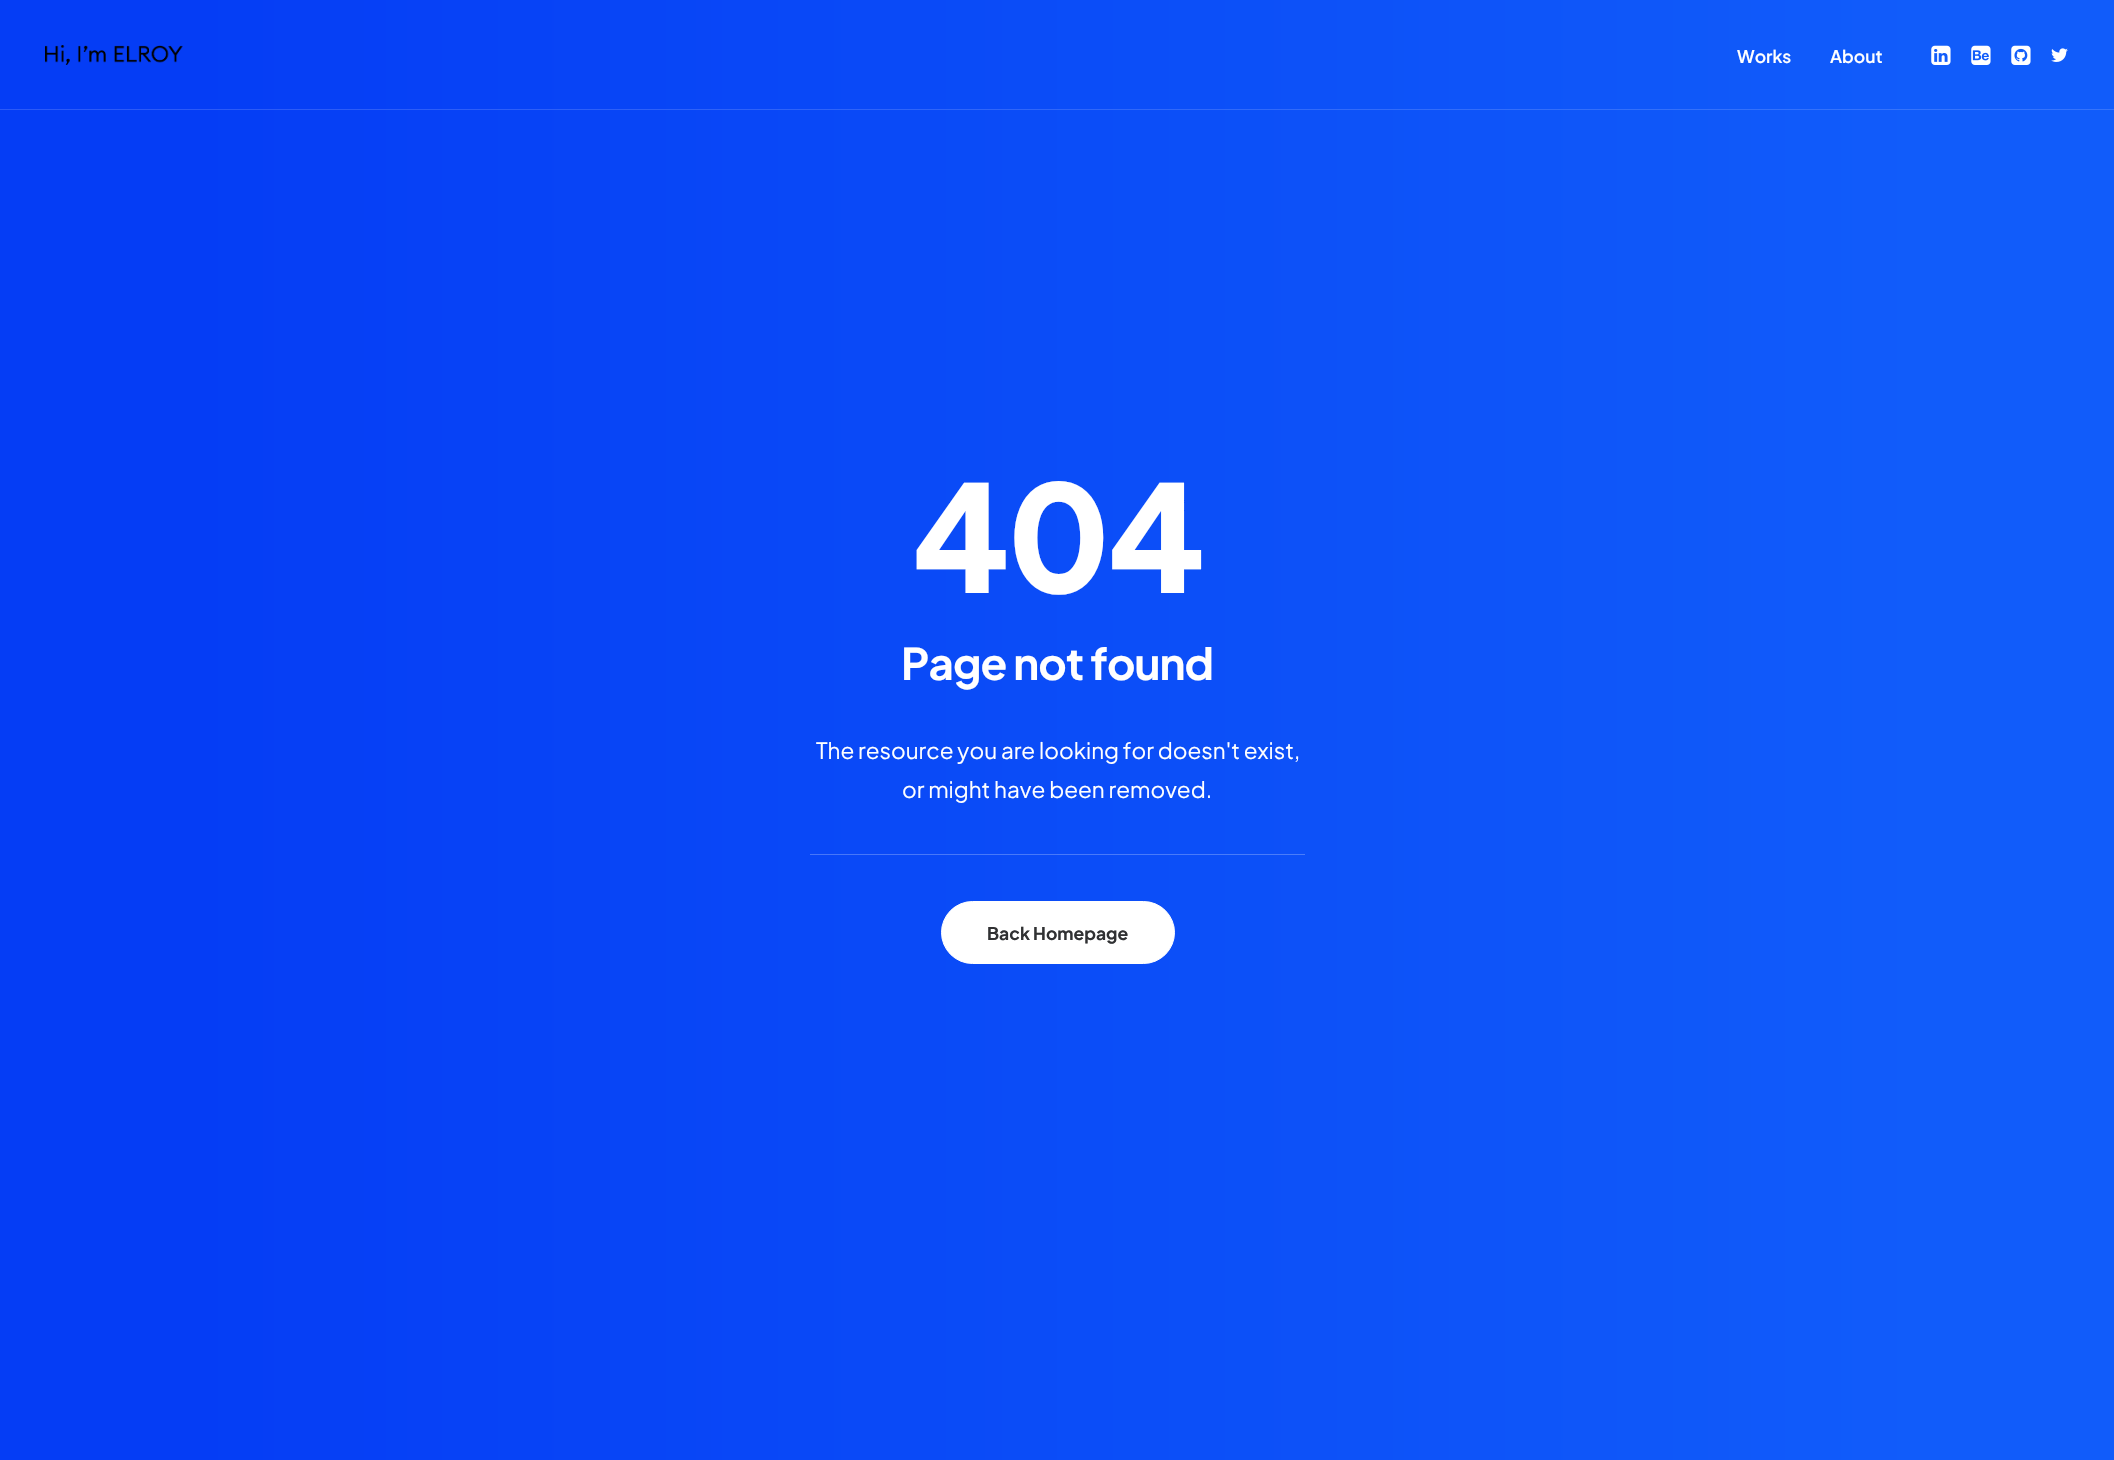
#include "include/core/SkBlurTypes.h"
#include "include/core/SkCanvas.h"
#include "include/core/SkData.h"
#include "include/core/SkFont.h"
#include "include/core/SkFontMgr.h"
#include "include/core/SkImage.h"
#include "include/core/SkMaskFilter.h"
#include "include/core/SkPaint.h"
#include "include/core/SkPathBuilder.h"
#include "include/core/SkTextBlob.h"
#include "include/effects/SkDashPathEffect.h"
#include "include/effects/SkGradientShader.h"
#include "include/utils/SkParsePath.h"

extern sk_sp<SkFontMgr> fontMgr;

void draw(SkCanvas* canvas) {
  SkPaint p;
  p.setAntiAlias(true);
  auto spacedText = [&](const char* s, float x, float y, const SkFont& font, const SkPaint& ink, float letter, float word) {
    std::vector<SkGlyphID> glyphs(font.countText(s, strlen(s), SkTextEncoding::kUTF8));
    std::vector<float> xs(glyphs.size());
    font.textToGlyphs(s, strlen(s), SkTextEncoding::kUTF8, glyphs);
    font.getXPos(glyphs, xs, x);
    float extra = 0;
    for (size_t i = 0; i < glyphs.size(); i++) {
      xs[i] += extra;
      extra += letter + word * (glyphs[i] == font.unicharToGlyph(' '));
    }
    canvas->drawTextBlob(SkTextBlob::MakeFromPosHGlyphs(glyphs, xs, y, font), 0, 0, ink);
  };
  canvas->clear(SK_ColorWHITE);
  {
    const SkColor colors[] = {SkColorSetRGB(17, 92, 250), SkColorSetRGB(5, 61, 245)};
    const float stops[] = {0.09f, 0.91f};
    const SkPoint ends[] = {{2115, 730}, {0, 730}};
    p.setShader(SkGradientShader::MakeLinear(ends, colors, stops, 2, SkTileMode::kClamp));
    p.setAlpha(255);
  }
  canvas->drawRect(SkRect::MakeLTRB(0, 0, 2114, 1460), p);
  canvas->drawImageRect(SkImages::DeferredFromEncodedData(SkData::MakeFromFileName("images/1.png")), SkRect::MakeLTRB(45, 45, 183, 65), SkSamplingOptions());
  canvas->drawImageRect(SkImages::DeferredFromEncodedData(SkData::MakeFromFileName("images/2.png")), SkRect::MakeLTRB(1931, 45, 1951, 65), SkSamplingOptions());
  canvas->drawImageRect(SkImages::DeferredFromEncodedData(SkData::MakeFromFileName("images/3.png")), SkRect::MakeLTRB(1971, 45, 1991, 65), SkSamplingOptions());
  canvas->drawImageRect(SkImages::DeferredFromEncodedData(SkData::MakeFromFileName("images/4.png")), SkRect::MakeLTRB(2011, 45, 2031, 65), SkSamplingOptions());
  canvas->drawImageRect(SkImages::DeferredFromEncodedData(SkData::MakeFromFileName("images/5.png")), SkRect::MakeLTRB(2051, 48, 2068, 62), SkSamplingOptions());
  {
    const SkColor colors[] = {SkColorSetRGB(53, 116, 251), SkColorSetRGB(43, 90, 247)};
    const float stops[] = {0.09f, 0.91f};
    const SkPoint ends[] = {{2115, 730}, {0, 730}};
    p.setShader(SkGradientShader::MakeLinear(ends, colors, stops, 2, SkTileMode::kClamp));
    p.setAlpha(255);
  }
  canvas->drawRect(SkRect::MakeLTRB(0, 109, 2114, 110), p);
  {
    const SkColor colors[] = {SkColorSetRGB(77, 133, 251), SkColorSetRGB(68, 110, 248)};
    const float stops[] = {0.09f, 0.91f};
    const SkPoint ends[] = {{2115, 730}, {0, 730}};
    p.setShader(SkGradientShader::MakeLinear(ends, colors, stops, 2, SkTileMode::kClamp));
    p.setAlpha(255);
  }
  canvas->drawRect(SkRect::MakeLTRB(810, 854, 1305, 855), p);
  p.setShader(nullptr);
  p.setColor(SK_ColorWHITE);
  canvas->drawRoundRect(SkRect::MakeLTRB(941.5f, 901.5f, 1174.5f, 963.5f), 31, 31, p);
  p.setStyle(SkPaint::kStroke_Style);
  p.setStrokeWidth(1);
  canvas->drawRoundRect(SkRect::MakeLTRB(941.5f, 901.5f, 1174.5f, 963.5f), 31, 31, p);
  SkFont font1(fontMgr->matchFamilyStyle("Plus Jakarta Sans", SkFontStyle(600, SkFontStyle::kNormal_Width, SkFontStyle::kUpright_Slant)), 17.5f);
  font1.setSubpixel(true);
  p.setStyle(SkPaint::kFill_Style);
  canvas->drawString("Works", 1737, 63, font1, p);
  canvas->drawString("About", 1830, 63, font1, p);
  SkFont font2(fontMgr->matchFamilyStyle("Plus Jakarta Sans", SkFontStyle(800, SkFontStyle::kNormal_Width, SkFontStyle::kUpright_Slant)), 148);
  font2.setSubpixel(true);
  spacedText("404", 912, 593, font2, p, -3, 0);
  SkFont font3(fontMgr->matchFamilyStyle("Plus Jakarta Sans", SkFontStyle::Bold()), 43.75f);
  font3.setSubpixel(true);
  spacedText("Page not found", 901, 680, font3, p, -0.9f, 0);
  SkFont font4(fontMgr->matchFamilyStyle("Plus Jakarta Sans", SkFontStyle::Normal()), 22.5f);
  font4.setSubpixel(true);
  canvas->drawString("The resource you are looking for doesn't exist,", 816, 759, font4, p);
  canvas->drawString("or might have been removed.", 902, 798, font4, p);
  SkFont font5(fontMgr->matchFamilyStyle("Plus Jakarta Sans", SkFontStyle::Bold()), 17.5f);
  font5.setSubpixel(true);
  p.setColor(SkColorSetRGB(48, 49, 51));
  canvas->drawString("Back Homepage", 987, 940, font5, p);
}
